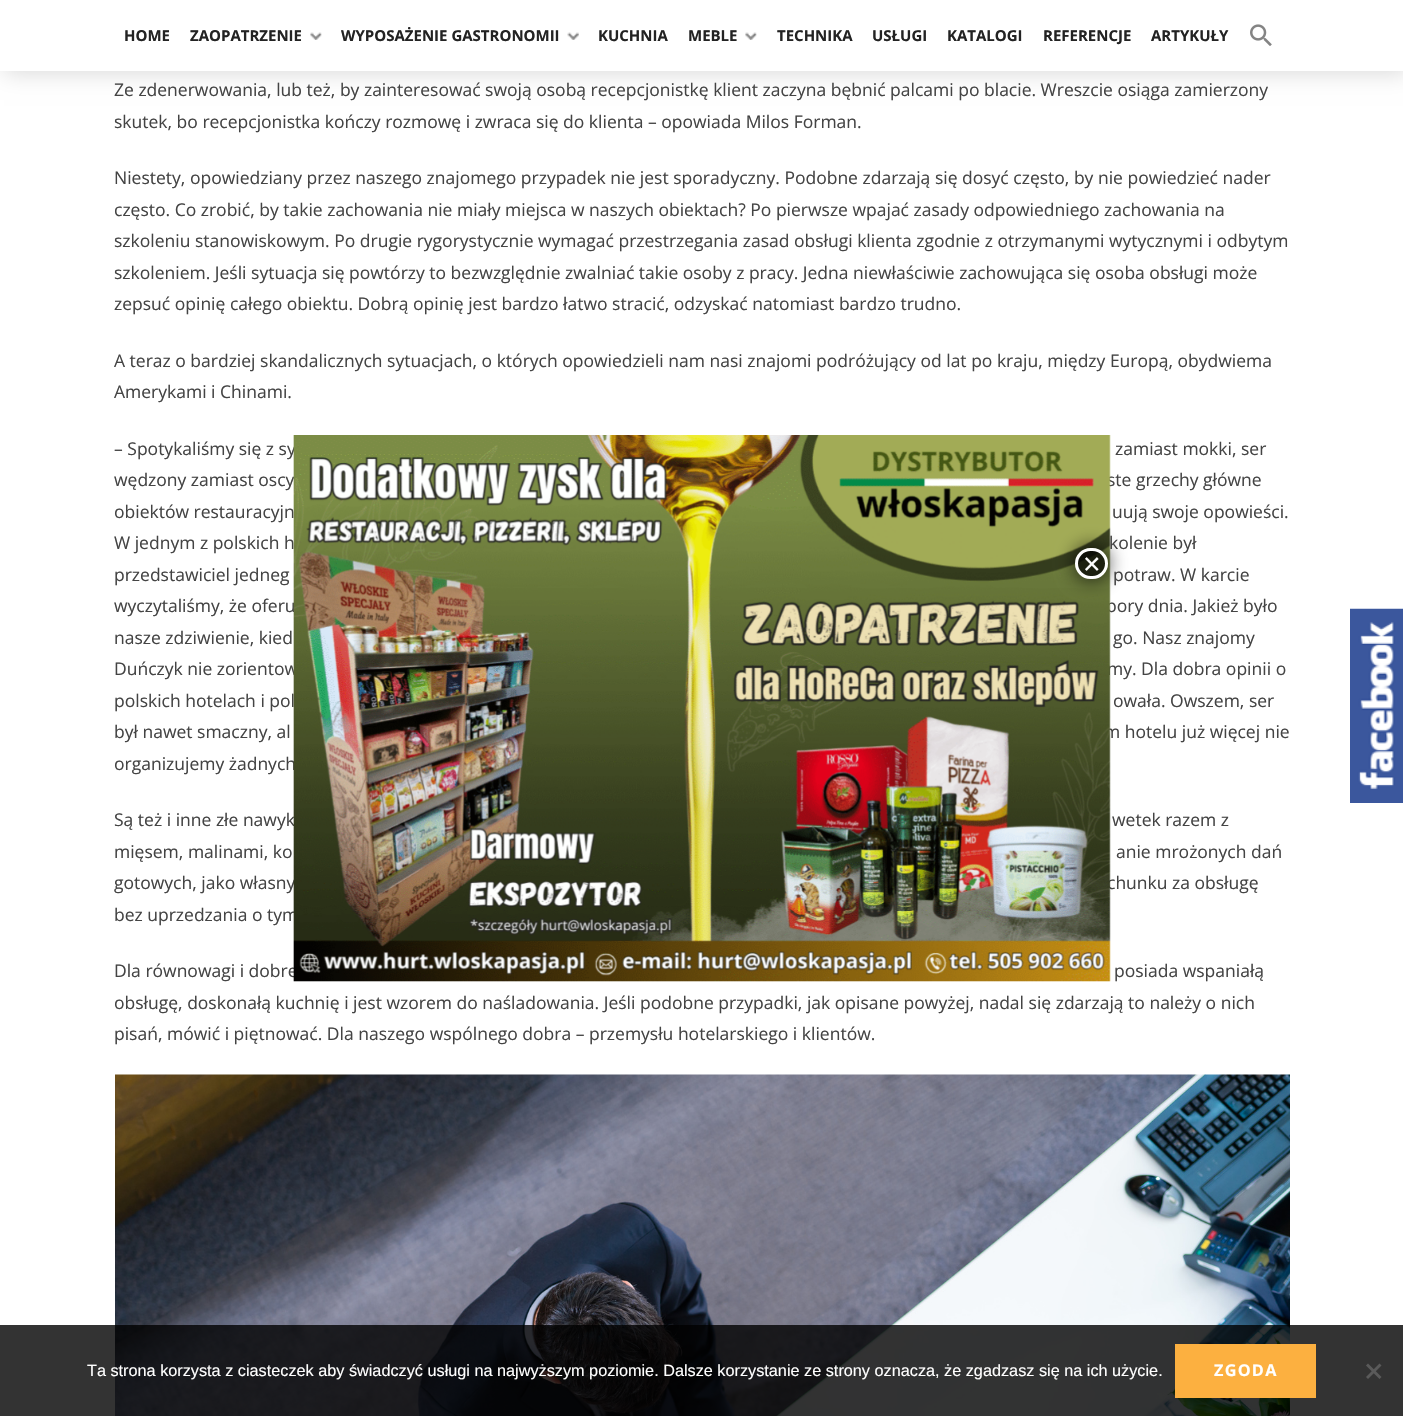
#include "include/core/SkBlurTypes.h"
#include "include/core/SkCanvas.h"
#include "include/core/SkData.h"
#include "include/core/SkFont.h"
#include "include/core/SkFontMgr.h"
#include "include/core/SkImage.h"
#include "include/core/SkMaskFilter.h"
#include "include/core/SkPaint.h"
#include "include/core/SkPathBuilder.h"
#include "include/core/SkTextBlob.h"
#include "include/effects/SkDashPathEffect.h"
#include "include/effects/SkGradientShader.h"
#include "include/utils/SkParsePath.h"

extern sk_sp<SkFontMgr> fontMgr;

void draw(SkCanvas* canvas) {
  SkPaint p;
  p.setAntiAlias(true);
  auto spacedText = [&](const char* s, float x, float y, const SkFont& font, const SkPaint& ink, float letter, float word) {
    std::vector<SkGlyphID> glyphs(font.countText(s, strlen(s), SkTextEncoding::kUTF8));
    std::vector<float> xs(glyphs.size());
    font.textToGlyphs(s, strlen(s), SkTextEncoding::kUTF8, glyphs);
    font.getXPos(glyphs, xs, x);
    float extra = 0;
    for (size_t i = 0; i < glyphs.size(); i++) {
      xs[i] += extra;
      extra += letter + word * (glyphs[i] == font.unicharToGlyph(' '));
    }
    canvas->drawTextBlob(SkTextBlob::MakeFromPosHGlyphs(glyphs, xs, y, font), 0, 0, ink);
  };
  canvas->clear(SK_ColorWHITE);
  p.setColor(SkColorSetARGB(38, 1, 2, 2));
  p.setMaskFilter(SkMaskFilter::MakeBlur(kNormal_SkBlurStyle, 11));
  canvas->drawRect(SkRect::MakeLTRB(4, 1, 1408, 73), p);
  p.setMaskFilter(nullptr);
  p.setColor(SK_ColorWHITE);
  canvas->drawRect(SkRect::MakeLTRB(0, 0, 1403, 71), p);
  canvas->drawImageRect(SkImages::DeferredFromEncodedData(SkData::MakeFromFileName("images/1.png")), SkRect::MakeLTRB(310, 32, 322, 40), SkSamplingOptions());
  canvas->drawImageRect(SkImages::DeferredFromEncodedData(SkData::MakeFromFileName("images/2.png")), SkRect::MakeLTRB(567, 32, 579, 40), SkSamplingOptions());
  canvas->drawImageRect(SkImages::DeferredFromEncodedData(SkData::MakeFromFileName("images/3.png")), SkRect::MakeLTRB(745, 32, 757, 40), SkSamplingOptions());
  canvas->drawImageRect(SkImages::DeferredFromEncodedData(SkData::MakeFromFileName("images/4.png")), SkRect::MakeLTRB(1250, 24, 1272, 46), SkSamplingOptions());
  canvas->drawImageRect(SkImages::DeferredFromEncodedData(SkData::MakeFromFileName("images/5.png")), SkRect::MakeLTRB(115, 1074, 1290, 1416), SkSamplingOptions());
  canvas->drawImageRect(SkImages::DeferredFromEncodedData(SkData::MakeFromFileName("images/7.png")), SkRect::MakeLTRB(1350, 608, 1403, 803), SkSamplingOptions());
  p.setColor(SkColorSetARGB(204, 0, 0, 0));
  canvas->drawRect(SkRect::MakeLTRB(0, 1325, 1403, 1416), p);
  p.setColor(SkColorSetRGB(252, 176, 64));
  canvas->drawRect(SkRect::MakeLTRB(1175, 1344, 1316, 1398), p);
  p.setColor(SkColorSetRGB(90, 90, 90));
  canvas->drawPath(SkPathBuilder().moveTo(1379.5f, 1363.5f).lineTo(1381.5f, 1365.5f).lineTo(1368, 1379).lineTo(1366, 1377).close().detach(), p);
  canvas->drawPath(SkPathBuilder().moveTo(1366, 1365.5f).lineTo(1368, 1363.5f).lineTo(1381.5f, 1377).lineTo(1379.5f, 1379).close().detach(), p);
  SkFont font1(fontMgr->matchFamilyStyle("Open Sans", SkFontStyle::Bold()), 15);
  font1.setSubpixel(true);
  p.setColor(SkColorSetRGB(35, 35, 35));
  canvas->drawString("HOME", 124, 41, font1, p);
  canvas->drawString("ZAOPATRZENIE", 190, 41, font1, p);
  canvas->drawString("WYPOSAŻENIE GASTRONOMII", 341, 41, font1, p);
  canvas->drawString("KUCHNIA", 598, 41, font1, p);
  canvas->drawString("MEBLE", 688, 41, font1, p);
  canvas->drawString("TECHNIKA", 777, 41, font1, p);
  canvas->drawString("USŁUGI", 872, 41, font1, p);
  canvas->drawString("KATALOGI", 947, 41, font1, p);
  canvas->drawString("REFERENCJE", 1043, 41, font1, p);
  canvas->drawString("ARTYKUŁY", 1151, 41, font1, p);
  SkFont font2(fontMgr->matchFamilyStyle("Open Sans", SkFontStyle::Normal()), 17.5f);
  font2.setSubpixel(true);
  p.setColor(SkColorSetRGB(68, 68, 68));
  canvas->drawString("Ze zdenerwowania, lub też, by zainteresować swoją osobą recepcjonistkę klient zaczyna bębnić palcami po blacie. Wreszcie osiąga zamierzony", 114, 96, font2, p);
  canvas->drawString("skutek, bo recepcjonistka kończy rozmowę i zwraca się do klienta – opowiada Milos Forman.", 114, 128, font2, p);
  canvas->drawString("Niestety, opowiedziany przez naszego znajomego przypadek nie jest sporadyczny. Podobne zdarzają się dosyć często, by nie powiedzieć nader", 114, 184, font2, p);
  canvas->drawString("często. Co zrobić, by takie zachowania nie miały miejsca w naszych obiektach? Po pierwsze wpajać zasady odpowiedniego zachowania na", 114, 216, font2, p);
  canvas->drawString("szkoleniu stanowiskowym. Po drugie rygorystycznie wymagać przestrzegania zasad obsługi klienta zgodnie z otrzymanymi wytycznymi i odbytym", 114, 247, font2, p);
  canvas->drawString("szkoleniem. Jeśli sytuacja się powtórzy to bezwzględnie zwalniać takie osoby z pracy. Jedna niewłaściwie zachowująca się osoba obsługi może", 114, 279, font2, p);
  canvas->drawString("zepsuć opinię całego obiektu. Dobrą opinię jest bardzo łatwo stracić, odzyskać natomiast bardzo trudno.", 114, 310, font2, p);
  canvas->drawString("A teraz o bardziej skandalicznych sytuacjach, o których opowiedzieli nam nasi znajomi podróżujący od lat po kraju, między Europą, obydwiema", 114, 367, font2, p);
  canvas->drawString("Amerykami i Chinami.", 114, 398, font2, p);
  canvas->drawString("– Spotykaliśmy się z sy", 114, 455, font2, p);
  canvas->drawString("zamiast mokki, ser", 1115, 455, font2, p);
  canvas->drawString("wędzony zamiast oscy", 114, 486, font2, p);
  canvas->drawString("ste grzechy główne", 1107, 486, font2, p);
  canvas->drawString("obiektów restauracyjn", 114, 518, font2, p);
  canvas->drawString("uują swoje opowieści.", 1112, 518, font2, p);
  canvas->drawString("W jednym z polskich h", 114, 549, font2, p);
  canvas->drawString("kolenie był", 1109, 549, font2, p);
  canvas->drawString("przedstawiciel jedneg", 114, 581, font2, p);
  canvas->drawString("potraw. W karcie", 1113, 581, font2, p);
  canvas->drawString("wyczytaliśmy, że oferu", 114, 612, font2, p);
  canvas->drawString("pory dnia. Jakież było", 1106, 612, font2, p);
  canvas->drawString("nasze zdziwienie, kied", 114, 644, font2, p);
  canvas->drawString("go. Nasz znajomy", 1113, 644, font2, p);
  canvas->drawString("Duńczyk nie zorientow", 114, 675, font2, p);
  canvas->drawString("my. Dla dobra opinii o", 1107, 675, font2, p);
  canvas->drawString("polskich hotelach i pol", 114, 707, font2, p);
  canvas->drawString("owała. Owszem, ser", 1113, 707, font2, p);
  canvas->drawString("był nawet smaczny, al", 114, 738, font2, p);
  canvas->drawString("m hotelu już więcej nie", 1104, 738, font2, p);
  canvas->drawString("organizujemy żadnych", 114, 770, font2, p);
  canvas->drawString("Są też i inne złe nawyk", 114, 826, font2, p);
  canvas->drawString("wetek razem z", 1112, 826, font2, p);
  canvas->drawString("mięsem, malinami, ko", 114, 858, font2, p);
  canvas->drawString("anie mrożonych dań", 1116, 858, font2, p);
  canvas->drawString("gotowych, jako własny", 114, 889, font2, p);
  canvas->drawString("chunku za obsługę", 1107, 889, font2, p);
  canvas->drawString("bez uprzedzania o tym", 114, 921, font2, p);
  canvas->drawString("Dla równowagi i dobre", 114, 977, font2, p);
  canvas->drawString("posiada wspaniałą", 1114, 977, font2, p);
  canvas->drawString("obsługę, doskonałą kuchnię i jest wzorem do naśladowania. Jeśli podobne przypadki, jak opisane powyżej, nadal się zdarzają to należy o nich", 114, 1009, font2, p);
  canvas->drawString("pisań, mówić i piętnować. Dla naszego wspólnego dobra – przemysłu hotelarskiego i klientów.", 114, 1040, font2, p);
  canvas->drawImageRect(SkImages::DeferredFromEncodedData(SkData::MakeFromFileName("images/6.png")), SkRect::MakeLTRB(293, 435, 1111, 982), SkSamplingOptions());
  canvas->save();
  canvas->clipPath(SkPathBuilder(SkPathFillType::kEvenOdd).moveTo(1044, 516).lineTo(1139, 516).lineTo(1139, 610).lineTo(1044, 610).close().moveTo(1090.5f, 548).lineTo(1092.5f, 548).cubicTo(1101, 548, 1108, 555, 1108, 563.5f).cubicTo(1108, 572, 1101, 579, 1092.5f, 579).lineTo(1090.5f, 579).cubicTo(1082, 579, 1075, 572, 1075, 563.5f).cubicTo(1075, 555, 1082, 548, 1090.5f, 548).close().detach(), true);
  p.setColor(SkColorSetARGB(191, 2, 2, 2));
  p.setMaskFilter(SkMaskFilter::MakeBlur(kNormal_SkBlurStyle, 9.5f));
  canvas->drawRoundRect(SkRect::MakeLTRB(1074, 546, 1109, 580), 17, 17, p);
  p.setMaskFilter(nullptr);
  canvas->restore();
  p.setColor(SkColorSetARGB(189, 0, 0, 0));
  canvas->drawRoundRect(SkRect::MakeLTRB(1076.5f, 549.5f, 1106.5f, 577.5f), 14, 14, p);
  p.setStyle(SkPaint::kStroke_Style);
  p.setStrokeWidth(3);
  p.setColor(SK_ColorWHITE);
  canvas->drawRoundRect(SkRect::MakeLTRB(1076.5f, 549.5f, 1106.5f, 577.5f), 14, 14, p);
  SkFont font3(fontMgr->matchFamilyStyle("Liberation Sans", SkFontStyle::Normal()), 30);
  font3.setSubpixel(true);
  p.setStyle(SkPaint::kFill_Style);
  canvas->drawString("×", 1083, 574, font3, p);
  SkFont font4(fontMgr->matchFamilyStyle("Liberation Sans", SkFontStyle::Normal()), 16.25f);
  font4.setSubpixel(true);
  canvas->drawString("Ta strona korzysta z ciasteczek aby świadczyć usługi na najwyższym poziomie. Dalsze korzystanie ze strony oznacza, że zgadzasz się na ich użycie.", 87, 1376, font4, p);
  SkFont font5(fontMgr->matchFamilyStyle("Open Sans", SkFontStyle::Bold()), 16.25f);
  font5.setSubpixel(true);
  spacedText("ZGODA", 1214, 1376, font5, p, 1.25f, 0);
}
